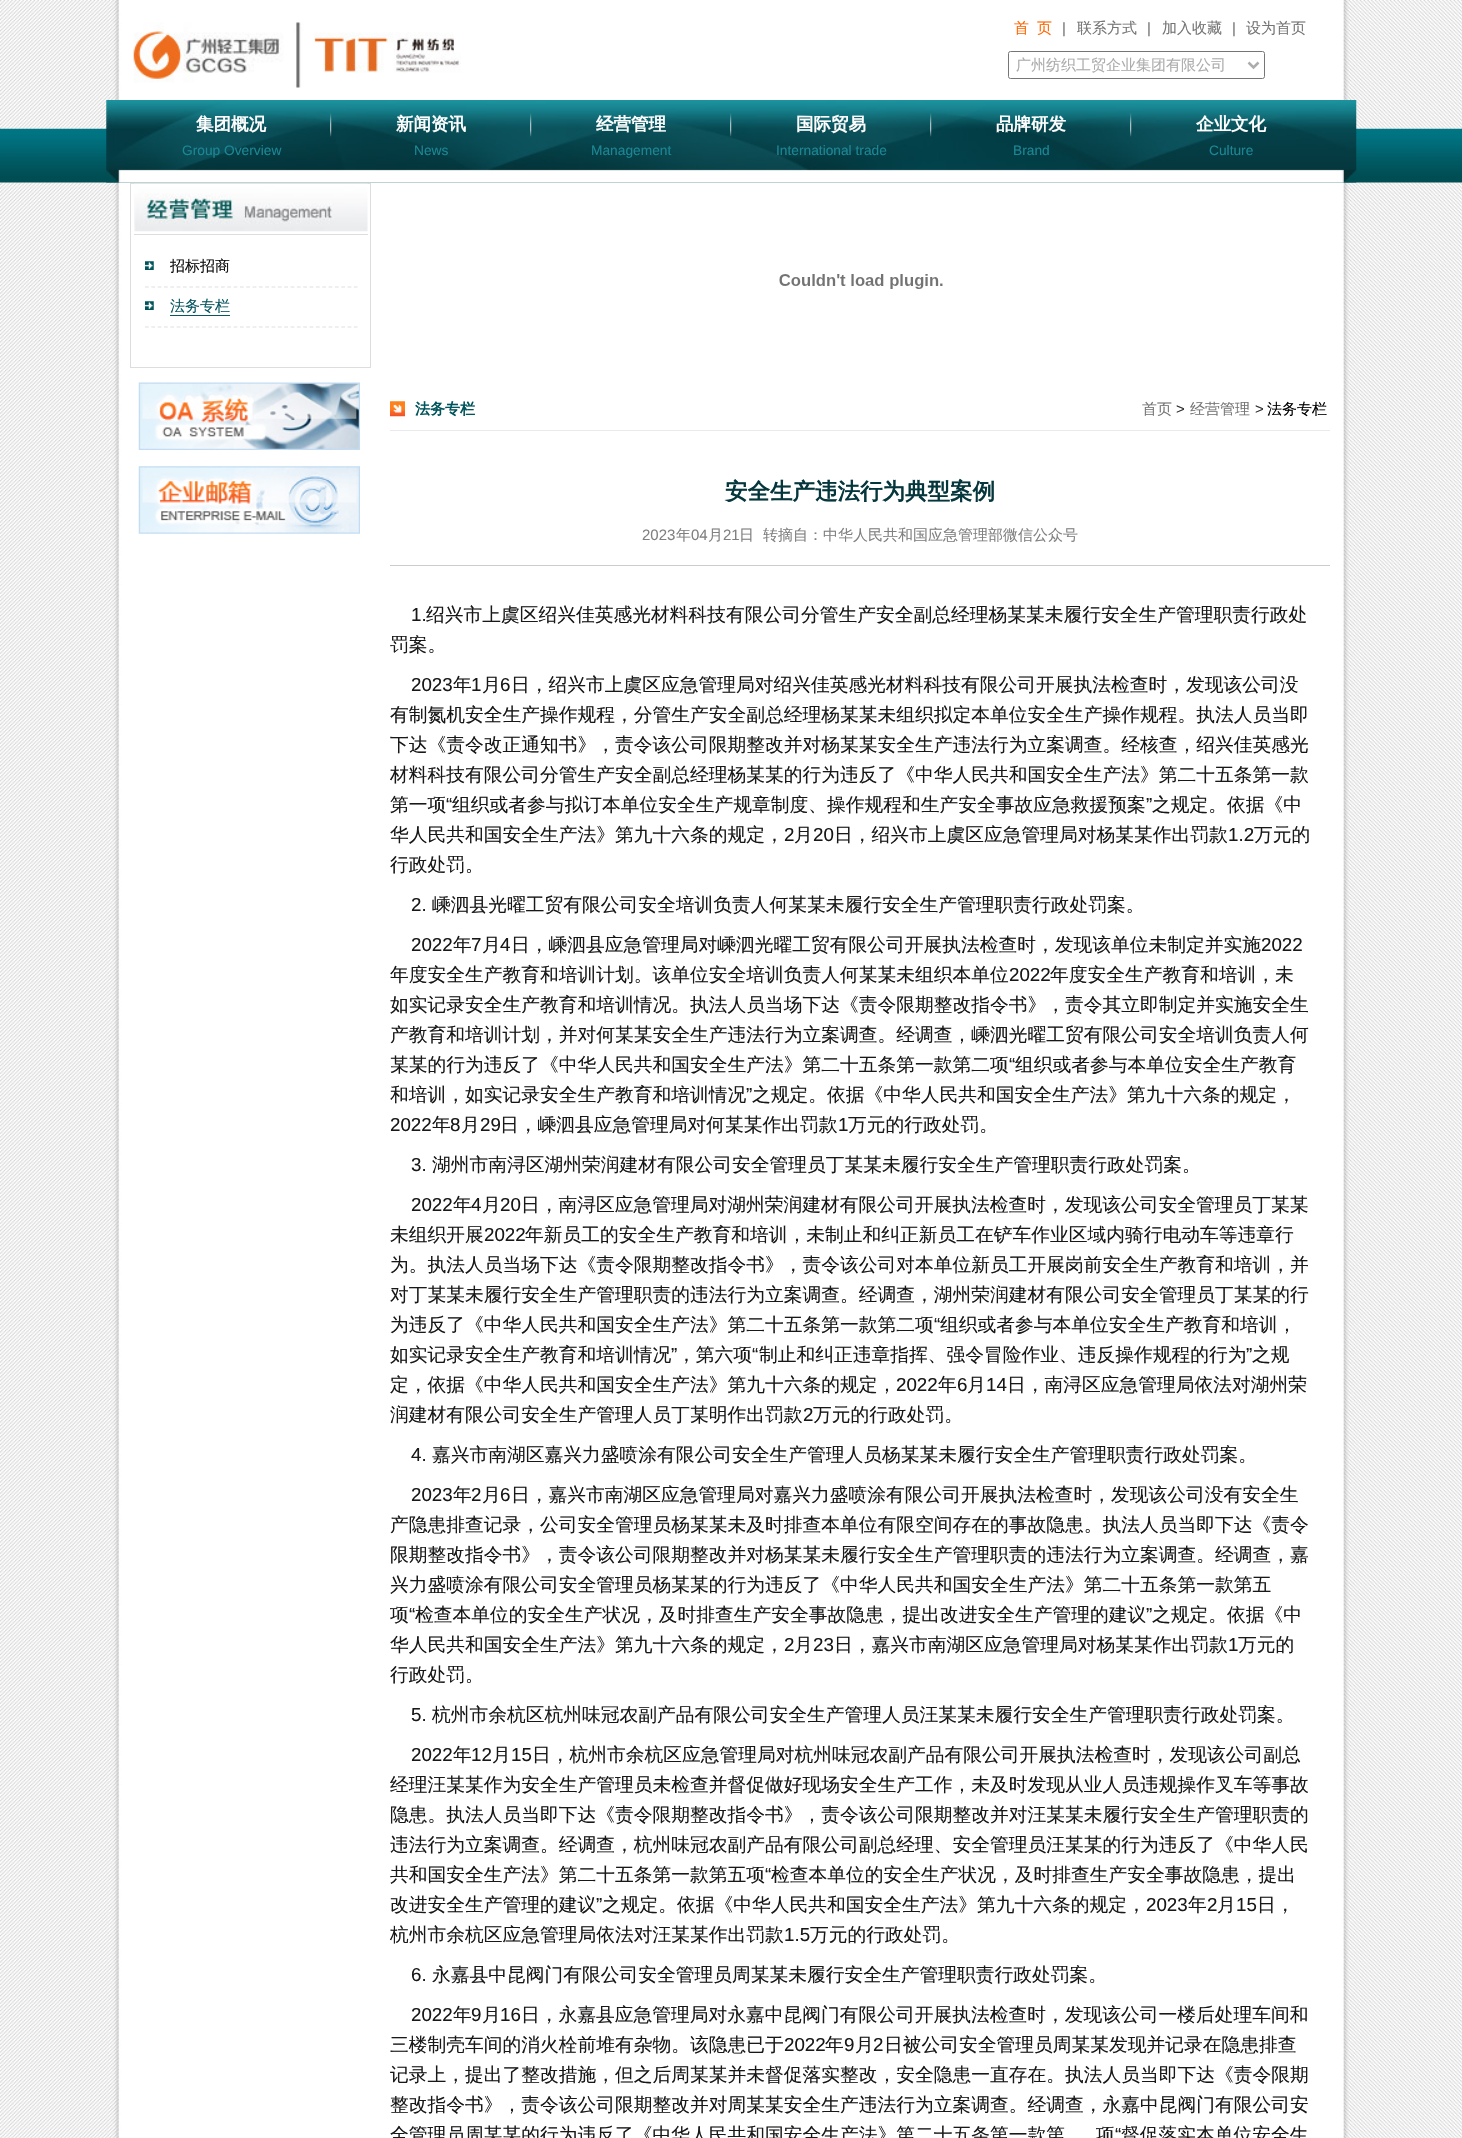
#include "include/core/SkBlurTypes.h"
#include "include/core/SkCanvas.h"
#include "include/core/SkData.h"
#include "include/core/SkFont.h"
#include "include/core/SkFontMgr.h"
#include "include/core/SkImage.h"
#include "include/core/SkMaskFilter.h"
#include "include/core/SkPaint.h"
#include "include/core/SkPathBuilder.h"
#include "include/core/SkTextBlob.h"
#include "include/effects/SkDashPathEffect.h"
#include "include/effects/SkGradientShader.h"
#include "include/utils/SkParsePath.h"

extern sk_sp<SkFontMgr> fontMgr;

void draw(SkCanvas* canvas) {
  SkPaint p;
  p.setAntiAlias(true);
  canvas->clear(SK_ColorWHITE);
  canvas->drawImageRect(SkImages::DeferredFromEncodedData(SkData::MakeFromFileName("images/1.png")), SkRect::MakeLTRB(0, 0, 1462, 2138), SkSamplingOptions());
  canvas->drawImageRect(SkImages::DeferredFromEncodedData(SkData::MakeFromFileName("images/2.png")), SkRect::MakeLTRB(0, 128, 1462, 183), SkSamplingOptions());
  canvas->drawImageRect(SkImages::DeferredFromEncodedData(SkData::MakeFromFileName("images/3.png")), SkRect::MakeLTRB(133, 22, 461, 88), SkSamplingOptions());
  p.setStyle(SkPaint::kStroke_Style);
  p.setStrokeWidth(1);
  p.setColor(SkColorSetRGB(118, 118, 118));
  canvas->drawRoundRect(SkRect::MakeLTRB(1008.5f, 51.5f, 1264.5f, 78.5f), 2, 2, p);
  p.setStrokeWidth(2.5f);
  p.setColor(SkColorSetRGB(172, 172, 172));
  canvas->drawPath(SkPathBuilder().moveTo(1248.5f, 62.5f).lineTo(1253.5f, 67.5f).lineTo(1258.5f, 62.5f).detach(), p);
  canvas->drawImageRect(SkImages::DeferredFromEncodedData(SkData::MakeFromFileName("images/4.png")), SkRect::MakeLTRB(106, 100, 1357, 183), SkSamplingOptions());
  canvas->drawImageRect(SkImages::DeferredFromEncodedData(SkData::MakeFromFileName("images/5.png")), SkRect::MakeLTRB(330, 113, 332, 137), SkSamplingOptions());
  canvas->drawImageRect(SkImages::DeferredFromEncodedData(SkData::MakeFromFileName("images/6.png")), SkRect::MakeLTRB(530, 113, 532, 137), SkSamplingOptions());
  canvas->drawImageRect(SkImages::DeferredFromEncodedData(SkData::MakeFromFileName("images/7.png")), SkRect::MakeLTRB(730, 113, 732, 137), SkSamplingOptions());
  canvas->drawImageRect(SkImages::DeferredFromEncodedData(SkData::MakeFromFileName("images/8.png")), SkRect::MakeLTRB(930, 113, 932, 137), SkSamplingOptions());
  canvas->drawImageRect(SkImages::DeferredFromEncodedData(SkData::MakeFromFileName("images/9.png")), SkRect::MakeLTRB(1130, 113, 1132, 137), SkSamplingOptions());
  p.setStrokeWidth(1);
  p.setColor(SkColorSetRGB(221, 221, 221));
  canvas->drawRect(SkRect::MakeLTRB(130.5f, 183.5f, 370.5f, 367.5f), p);
  p.setStyle(SkPaint::kFill_Style);
  canvas->drawRect(SkRect::MakeLTRB(134, 234, 368, 235), p);
  canvas->drawImageRect(SkImages::DeferredFromEncodedData(SkData::MakeFromFileName("images/10.png")), SkRect::MakeLTRB(134, 183, 368, 232), SkSamplingOptions());
  canvas->drawImageRect(SkImages::DeferredFromEncodedData(SkData::MakeFromFileName("images/11.png")), SkRect::MakeLTRB(145, 261, 154, 270), SkSamplingOptions());
  p.setStyle(SkPaint::kStroke_Style);
  p.setStrokeWidth(1.2f);
  p.setColor(SkColorSetRGB(224, 224, 224));
  p.setPathEffect(SkDashPathEffect::Make({{3.75f, 2.58f}}, 0));
  canvas->drawPath(SkPathBuilder().moveTo(145, 287).lineTo(357.5f, 287).detach(), p);
  p.setPathEffect(nullptr);
  canvas->drawImageRect(SkImages::DeferredFromEncodedData(SkData::MakeFromFileName("images/11.png")), SkRect::MakeLTRB(145, 301, 154, 310), SkSamplingOptions());
  p.setPathEffect(SkDashPathEffect::Make({{3.75f, 2.58f}}, 0));
  canvas->drawPath(SkPathBuilder().moveTo(145, 327).lineTo(357.5f, 327).detach(), p);
  p.setPathEffect(nullptr);
  p.setStyle(SkPaint::kFill_Style);
  p.setColor(SkColorSetRGB(8, 86, 96));
  canvas->drawRect(SkRect::MakeLTRB(170, 315, 230, 316), p);
  canvas->drawImageRect(SkImages::DeferredFromEncodedData(SkData::MakeFromFileName("images/12.png")), SkRect::MakeLTRB(138, 382, 360, 450), SkSamplingOptions());
  canvas->drawImageRect(SkImages::DeferredFromEncodedData(SkData::MakeFromFileName("images/13.png")), SkRect::MakeLTRB(138, 466, 360, 534), SkSamplingOptions());
  canvas->drawImageRect(SkImages::DeferredFromEncodedData(SkData::MakeFromFileName("images/14.png")), SkRect::MakeLTRB(779, 274, 943, 289), SkSamplingOptions());
  p.setColor(SkColorSetRGB(234, 234, 234));
  canvas->drawRect(SkRect::MakeLTRB(390, 430, 1330, 431), p);
  canvas->drawImageRect(SkImages::DeferredFromEncodedData(SkData::MakeFromFileName("images/15.png")), SkRect::MakeLTRB(390, 401, 405, 417), SkSamplingOptions());
  p.setColor(SkColorSetRGB(204, 204, 204));
  canvas->drawRect(SkRect::MakeLTRB(390, 565, 1330, 566), p);
  SkFont font1(fontMgr->matchFamilyStyle("WenQuanYi Zen Hei", SkFontStyle(500, SkFontStyle::kNormal_Width, SkFontStyle::kUpright_Slant)), 15);
  font1.setSubpixel(true);
  p.setColor(SkColorSetRGB(255, 102, 0));
  canvas->drawString("首", 1014, 33, font1, p);
  canvas->drawString("页", 1037, 33, font1, p);
  SkFont font2(fontMgr->matchFamilyStyle("Liberation Sans", SkFontStyle::Normal()), 15);
  font2.setSubpixel(true);
  p.setColor(SkColorSetRGB(117, 117, 117));
  canvas->drawString("|", 1062, 33, font2, p);
  canvas->drawString("联系方式", 1077, 33, font1, p);
  canvas->drawString("|", 1147, 33, font2, p);
  canvas->drawString("加入收藏", 1162, 33, font1, p);
  canvas->drawString("|", 1232, 33, font2, p);
  canvas->drawString("设为首页", 1246, 33, font1, p);
  p.setColor(SkColorSetRGB(172, 172, 172));
  canvas->drawString("广州纺织工贸企业集团有限公司", 1016, 70, font1, p);
  SkFont font3(fontMgr->matchFamilyStyle("WenQuanYi Zen Hei", SkFontStyle::Bold()), 17.5f);
  font3.setSubpixel(true);
  p.setColor(SK_ColorWHITE);
  canvas->drawString("集团概况", 196, 130, font3, p);
  SkFont font4(fontMgr->matchFamilyStyle("Liberation Sans", SkFontStyle::Normal()), 13.75f);
  font4.setSubpixel(true);
  p.setColor(SkColorSetRGB(28, 134, 148));
  canvas->drawString("Group Overview", 182, 155, font4, p);
  p.setColor(SK_ColorWHITE);
  canvas->drawString("新闻资讯", 396, 130, font3, p);
  p.setColor(SkColorSetRGB(28, 134, 148));
  canvas->drawString("News", 414, 155, font4, p);
  p.setColor(SK_ColorWHITE);
  canvas->drawString("经营管理", 596, 130, font3, p);
  p.setColor(SkColorSetRGB(28, 134, 148));
  canvas->drawString("Management", 591, 155, font4, p);
  p.setColor(SK_ColorWHITE);
  canvas->drawString("国际贸易", 796, 130, font3, p);
  p.setColor(SkColorSetRGB(28, 134, 148));
  canvas->drawString("International trade", 776, 155, font4, p);
  p.setColor(SK_ColorWHITE);
  canvas->drawString("品牌研发", 996, 130, font3, p);
  p.setColor(SkColorSetRGB(28, 134, 148));
  canvas->drawString("Brand", 1013, 155, font4, p);
  p.setColor(SK_ColorWHITE);
  canvas->drawString("企业文化", 1196, 130, font3, p);
  p.setColor(SkColorSetRGB(28, 134, 148));
  canvas->drawString("Culture", 1209, 155, font4, p);
  p.setColor(SkColorSetRGB(15, 15, 15));
  canvas->drawString("招标招商", 170, 271, font1, p);
  p.setColor(SkColorSetRGB(8, 86, 96));
  canvas->drawString("法务专栏", 170, 311, font1, p);
  SkFont font5(fontMgr->matchFamilyStyle("WenQuanYi Zen Hei", SkFontStyle::Bold()), 15);
  font5.setSubpixel(true);
  p.setColor(SkColorSetRGB(0, 84, 91));
  canvas->drawString("法务专栏", 415, 414, font5, p);
  p.setColor(SkColorSetRGB(117, 117, 117));
  canvas->drawString("首页", 1142, 414, font1, p);
  p.setColor(SkColorSetRGB(51, 51, 51));
  canvas->drawString(">", 1176, 414, font2, p);
  p.setColor(SkColorSetRGB(117, 117, 117));
  canvas->drawString("经营管理", 1190, 414, font1, p);
  p.setColor(SkColorSetRGB(51, 51, 51));
  canvas->drawString(">", 1255, 414, font2, p);
  p.setColor(SK_ColorBLACK);
  canvas->drawString("法务专栏", 1267, 414, font1, p);
  SkFont font6(fontMgr->matchFamilyStyle("WenQuanYi Zen Hei", SkFontStyle::Bold()), 22.5f);
  font6.setSubpixel(true);
  p.setColor(SkColorSetRGB(4, 54, 60));
  canvas->drawString("安全生产违法行为典型案例", 725, 499, font6, p);
  p.setColor(SkColorSetRGB(128, 128, 128));
  canvas->drawString("2023", 642, 540, font2, p);
  canvas->drawString("年", 676, 540, font1, p);
  canvas->drawString("04", 691, 540, font2, p);
  canvas->drawString("月", 708, 540, font1, p);
  canvas->drawString("21", 723, 540, font2, p);
  canvas->drawString("日", 739, 540, font1, p);
  canvas->drawString("转摘自：中华人民共和国应急管理部微信公众号", 763, 540, font1, p);
  SkFont font7(fontMgr->matchFamilyStyle("Liberation Sans", SkFontStyle::Normal()), 18.75f);
  font7.setSubpixel(true);
  p.setColor(SkColorSetRGB(24, 24, 24));
  canvas->drawString("1.", 411, 621, font7, p);
  SkFont font8(fontMgr->matchFamilyStyle("WenQuanYi Zen Hei", SkFontStyle(500, SkFontStyle::kNormal_Width, SkFontStyle::kUpright_Slant)), 18.75f);
  font8.setSubpixel(true);
  canvas->drawString("绍兴市上虞区绍兴佳英感光材料科技有限公司分管生产安全副总经理杨某某未履行安全生产管理职责行政处", 426, 621, font8, p);
  canvas->drawString("罚案。", 390, 651, font8, p);
  canvas->drawString("2023", 411, 691, font7, p);
  canvas->drawString("年", 453, 691, font8, p);
  canvas->drawString("1", 471, 691, font7, p);
  canvas->drawString("月", 482, 691, font8, p);
  canvas->drawString("6", 500, 691, font7, p);
  canvas->drawString("日，绍兴市上虞区应急管理局对绍兴佳英感光材料科技有限公司开展执法检查时，发现该公司没", 511, 691, font8, p);
  canvas->drawString("有制氮机安全生产操作规程，分管生产安全副总经理杨某某未组织拟定本单位安全生产操作规程。执法人员当即", 390, 721, font8, p);
  canvas->drawString("下达《责令改正通知书》，责令该公司限期整改并对杨某某安全生产违法行为立案调查。经核查，绍兴佳英感光", 390, 751, font8, p);
  canvas->drawString("材料科技有限公司分管生产安全副总经理杨某某的行为违反了《中华人民共和国安全生产法》第二十五条第一款", 390, 781, font8, p);
  canvas->drawString("第一项", 390, 811, font8, p);
  canvas->drawString("“", 446, 811, font7, p);
  canvas->drawString("组织或者参与拟订本单位安全生产规章制度、操作规程和生产安全事故应急救援预案", 452, 811, font8, p);
  canvas->drawString("”", 1146, 811, font7, p);
  canvas->drawString("之规定。依据《中", 1152, 811, font8, p);
  canvas->drawString("华人民共和国安全生产法》第九十六条的规定，", 390, 841, font8, p);
  canvas->drawString("2", 784, 841, font7, p);
  canvas->drawString("月", 794, 841, font8, p);
  canvas->drawString("20", 813, 841, font7, p);
  canvas->drawString("日，绍兴市上虞区应急管理局对杨某某作出罚款", 834, 841, font8, p);
  canvas->drawString("1.2", 1228, 841, font7, p);
  canvas->drawString("万元的", 1254, 841, font8, p);
  canvas->drawString("行政处罚。", 390, 871, font8, p);
  canvas->drawString("2.", 411, 911, font7, p);
  canvas->drawString("嵊泗县光曜工贸有限公司安全培训负责人何某某未履行安全生产管理职责行政处罚案。", 432, 911, font8, p);
  canvas->drawString("2022", 411, 951, font7, p);
  canvas->drawString("年", 453, 951, font8, p);
  canvas->drawString("7", 471, 951, font7, p);
  canvas->drawString("月", 482, 951, font8, p);
  canvas->drawString("4", 500, 951, font7, p);
  canvas->drawString("日，嵊泗县应急管理局对嵊泗光曜工贸有限公司开展执法检查时，发现该单位未制定并实施", 511, 951, font8, p);
  canvas->drawString("2022", 1261, 951, font7, p);
  canvas->drawString("年度安全生产教育和培训计划。该单位安全培训负责人何某某未组织本单位", 390, 981, font8, p);
  canvas->drawString("2022", 1009, 981, font7, p);
  canvas->drawString("年度安全生产教育和培训，未", 1050, 981, font8, p);
  canvas->drawString("如实记录安全生产教育和培训情况。执法人员当场下达《责令限期整改指令书》，责令其立即制定并实施安全生", 390, 1011, font8, p);
  canvas->drawString("产教育和培训计划，并对何某某安全生产违法行为立案调查。经调查，嵊泗光曜工贸有限公司安全培训负责人何", 390, 1041, font8, p);
  canvas->drawString("某某的行为违反了《中华人民共和国安全生产法》第二十五条第一款第二项", 390, 1071, font8, p);
  canvas->drawString("“", 1009, 1071, font7, p);
  canvas->drawString("组织或者参与本单位安全生产教育", 1015, 1071, font8, p);
  canvas->drawString("和培训，如实记录安全生产教育和培训情况", 390, 1101, font8, p);
  canvas->drawString("”", 746, 1101, font7, p);
  canvas->drawString("之规定。依据《中华人民共和国安全生产法》第九十六条的规定，", 752, 1101, font8, p);
  canvas->drawString("2022", 390, 1131, font7, p);
  canvas->drawString("年", 432, 1131, font8, p);
  canvas->drawString("8", 450, 1131, font7, p);
  canvas->drawString("月", 461, 1131, font8, p);
  canvas->drawString("29", 480, 1131, font7, p);
  canvas->drawString("日，嵊泗县应急管理局对何某某作出罚款", 500, 1131, font8, p);
  canvas->drawString("1", 838, 1131, font7, p);
  canvas->drawString("万元的行政处罚。", 848, 1131, font8, p);
  canvas->drawString("3.", 411, 1171, font7, p);
  canvas->drawString("湖州市南浔区湖州荣润建材有限公司安全管理员丁某某未履行安全生产管理职责行政处罚案。", 432, 1171, font8, p);
  canvas->drawString("2022", 411, 1211, font7, p);
  canvas->drawString("年", 453, 1211, font8, p);
  canvas->drawString("4", 471, 1211, font7, p);
  canvas->drawString("月", 482, 1211, font8, p);
  canvas->drawString("20", 500, 1211, font7, p);
  canvas->drawString("日，南浔区应急管理局对湖州荣润建材有限公司开展执法检查时，发现该公司安全管理员丁某某", 521, 1211, font8, p);
  canvas->drawString("未组织开展", 390, 1241, font8, p);
  canvas->drawString("2022", 484, 1241, font7, p);
  canvas->drawString("年新员工的安全生产教育和培训，未制止和纠正新员工在铲车作业区域内骑行电动车等违章行", 525, 1241, font8, p);
  canvas->drawString("为。执法人员当场下达《责令限期整改指令书》，责令该公司对本单位新员工开展岗前安全生产教育和培训，并", 390, 1271, font8, p);
  canvas->drawString("对丁某某未履行安全生产管理职责的违法行为立案调查。经调查，湖州荣润建材有限公司安全管理员丁某某的行", 390, 1301, font8, p);
  canvas->drawString("为违反了《中华人民共和国安全生产法》第二十五条第一款第二项", 390, 1331, font8, p);
  canvas->drawString("“", 934, 1331, font7, p);
  canvas->drawString("组织或者参与本单位安全生产教育和培训，", 940, 1331, font8, p);
  canvas->drawString("如实记录安全生产教育和培训情况", 390, 1361, font8, p);
  canvas->drawString("”", 671, 1361, font7, p);
  canvas->drawString("，第六项", 677, 1361, font8, p);
  canvas->drawString("“", 752, 1361, font7, p);
  canvas->drawString("制止和纠正违章指挥、强令冒险作业、违反操作规程的行为", 759, 1361, font8, p);
  canvas->drawString("”", 1246, 1361, font7, p);
  canvas->drawString("之规", 1252, 1361, font8, p);
  canvas->drawString("定，依据《中华人民共和国安全生产法》第九十六条的规定，", 390, 1391, font8, p);
  canvas->drawString("2022", 896, 1391, font7, p);
  canvas->drawString("年", 938, 1391, font8, p);
  canvas->drawString("6", 957, 1391, font7, p);
  canvas->drawString("月", 967, 1391, font8, p);
  canvas->drawString("14", 986, 1391, font7, p);
  canvas->drawString("日，南浔区应急管理局依法对湖州荣", 1007, 1391, font8, p);
  canvas->drawString("润建材有限公司安全生产管理人员丁某明作出罚款", 390, 1421, font8, p);
  canvas->drawString("2", 803, 1421, font7, p);
  canvas->drawString("万元的行政处罚。", 813, 1421, font8, p);
  canvas->drawString("4.", 411, 1461, font7, p);
  canvas->drawString("嘉兴市南湖区嘉兴力盛喷涂有限公司安全生产管理人员杨某某未履行安全生产管理职责行政处罚案。", 432, 1461, font8, p);
  canvas->drawString("2023", 411, 1501, font7, p);
  canvas->drawString("年", 453, 1501, font8, p);
  canvas->drawString("2", 471, 1501, font7, p);
  canvas->drawString("月", 482, 1501, font8, p);
  canvas->drawString("6", 500, 1501, font7, p);
  canvas->drawString("日，嘉兴市南湖区应急管理局对嘉兴力盛喷涂有限公司开展执法检查时，发现该公司没有安全生", 511, 1501, font8, p);
  canvas->drawString("产隐患排查记录，公司安全管理员杨某某未及时排查本单位有限空间存在的事故隐患。执法人员当即下达《责令", 390, 1531, font8, p);
  canvas->drawString("限期整改指令书》，责令该公司限期整改并对杨某某未履行安全生产管理职责的违法行为立案调查。经调查，嘉", 390, 1561, font8, p);
  canvas->drawString("兴力盛喷涂有限公司安全管理员杨某某的行为违反了《中华人民共和国安全生产法》第二十五条第一款第五", 390, 1591, font8, p);
  canvas->drawString("项", 390, 1621, font8, p);
  canvas->drawString("“", 409, 1621, font7, p);
  canvas->drawString("检查本单位的安全生产状况，及时排查生产安全事故隐患，提出改进安全生产管理的建议", 415, 1621, font8, p);
  canvas->drawString("”", 1146, 1621, font7, p);
  canvas->drawString("之规定。依据《中", 1152, 1621, font8, p);
  canvas->drawString("华人民共和国安全生产法》第九十六条的规定，", 390, 1651, font8, p);
  canvas->drawString("2", 784, 1651, font7, p);
  canvas->drawString("月", 794, 1651, font8, p);
  canvas->drawString("23", 813, 1651, font7, p);
  canvas->drawString("日，嘉兴市南湖区应急管理局对杨某某作出罚款", 834, 1651, font8, p);
  canvas->drawString("1", 1228, 1651, font7, p);
  canvas->drawString("万元的", 1238, 1651, font8, p);
  canvas->drawString("行政处罚。", 390, 1681, font8, p);
  canvas->drawString("5.", 411, 1721, font7, p);
  canvas->drawString("杭州市余杭区杭州味冠农副产品有限公司安全生产管理人员汪某某未履行安全生产管理职责行政处罚案。", 432, 1721, font8, p);
  canvas->drawString("2022", 411, 1761, font7, p);
  canvas->drawString("年", 453, 1761, font8, p);
  canvas->drawString("12", 471, 1761, font7, p);
  canvas->drawString("月", 492, 1761, font8, p);
  canvas->drawString("15", 511, 1761, font7, p);
  canvas->drawString("日，杭州市余杭区应急管理局对杭州味冠农副产品有限公司开展执法检查时，发现该公司副总", 532, 1761, font8, p);
  canvas->drawString("经理汪某某作为安全生产管理员未检查并督促做好现场安全生产工作，未及时发现从业人员违规操作叉车等事故", 390, 1791, font8, p);
  canvas->drawString("隐患。执法人员当即下达《责令限期整改指令书》，责令该公司限期整改并对汪某某未履行安全生产管理职责的", 390, 1821, font8, p);
  canvas->drawString("违法行为立案调查。经调查，杭州味冠农副产品有限公司副总经理、安全管理员汪某某的行为违反了《中华人民", 390, 1851, font8, p);
  canvas->drawString("共和国安全生产法》第二十五条第一款第五项", 390, 1881, font8, p);
  canvas->drawString("“", 765, 1881, font7, p);
  canvas->drawString("检查本单位的安全生产状况，及时排查生产安全事故隐患，提出", 771, 1881, font8, p);
  canvas->drawString("改进安全生产管理的建议", 390, 1911, font8, p);
  canvas->drawString("”", 596, 1911, font7, p);
  canvas->drawString("之规定。依据《中华人民共和国安全生产法》第九十六条的规定，", 602, 1911, font8, p);
  canvas->drawString("2023", 1146, 1911, font7, p);
  canvas->drawString("年", 1188, 1911, font8, p);
  canvas->drawString("2", 1207, 1911, font7, p);
  canvas->drawString("月", 1217, 1911, font8, p);
  canvas->drawString("15", 1236, 1911, font7, p);
  canvas->drawString("日，", 1257, 1911, font8, p);
  canvas->drawString("杭州市余杭区应急管理局依法对汪某某作出罚款", 390, 1941, font8, p);
  canvas->drawString("1.5", 784, 1941, font7, p);
  canvas->drawString("万元的行政处罚。", 810, 1941, font8, p);
  canvas->drawString("6.", 411, 1981, font7, p);
  canvas->drawString("永嘉县中昆阀门有限公司安全管理员周某某未履行安全生产管理职责行政处罚案。", 432, 1981, font8, p);
  canvas->drawString("2022", 411, 2021, font7, p);
  canvas->drawString("年", 453, 2021, font8, p);
  canvas->drawString("9", 471, 2021, font7, p);
  canvas->drawString("月", 482, 2021, font8, p);
  canvas->drawString("16", 500, 2021, font7, p);
  canvas->drawString("日，永嘉县应急管理局对永嘉中昆阀门有限公司开展执法检查时，发现该公司一楼后处理车间和", 521, 2021, font8, p);
  canvas->drawString("三楼制壳车间的消火栓前堆有杂物。该隐患已于", 390, 2051, font8, p);
  canvas->drawString("2022", 784, 2051, font7, p);
  canvas->drawString("年", 825, 2051, font8, p);
  canvas->drawString("9", 844, 2051, font7, p);
  canvas->drawString("月", 855, 2051, font8, p);
  canvas->drawString("2", 873, 2051, font7, p);
  canvas->drawString("日被公司安全管理员周某某发现并记录在隐患排查", 884, 2051, font8, p);
  canvas->drawString("记录上，提出了整改措施，但之后周某某并未督促落实整改，安全隐患一直存在。执法人员当即下达《责令限期", 390, 2081, font8, p);
  canvas->drawString("整改指令书》，责令该公司限期整改并对周某某安全生产违法行为立案调查。经调查，永嘉中昆阀门有限公司安", 390, 2111, font8, p);
  canvas->drawString("全管理员周某某的行为违反了《中华人民共和国安全生产法》第二十五条第一款第", 390, 2141, font8, p);
  canvas->drawString("项", 1096, 2141, font8, p);
  canvas->drawString("“", 1115, 2141, font7, p);
  canvas->drawString("督促落实本单位安全生", 1121, 2141, font8, p);
}
